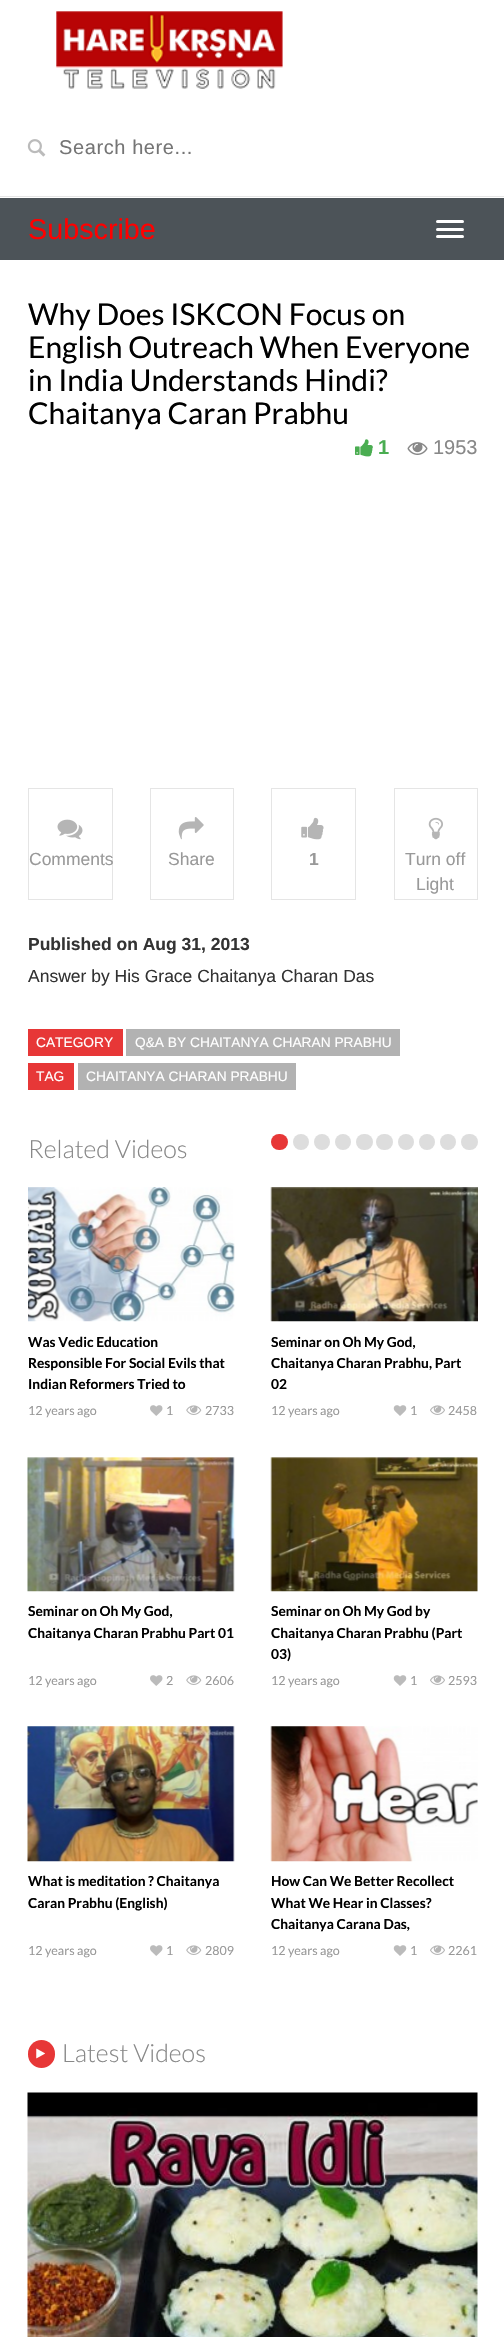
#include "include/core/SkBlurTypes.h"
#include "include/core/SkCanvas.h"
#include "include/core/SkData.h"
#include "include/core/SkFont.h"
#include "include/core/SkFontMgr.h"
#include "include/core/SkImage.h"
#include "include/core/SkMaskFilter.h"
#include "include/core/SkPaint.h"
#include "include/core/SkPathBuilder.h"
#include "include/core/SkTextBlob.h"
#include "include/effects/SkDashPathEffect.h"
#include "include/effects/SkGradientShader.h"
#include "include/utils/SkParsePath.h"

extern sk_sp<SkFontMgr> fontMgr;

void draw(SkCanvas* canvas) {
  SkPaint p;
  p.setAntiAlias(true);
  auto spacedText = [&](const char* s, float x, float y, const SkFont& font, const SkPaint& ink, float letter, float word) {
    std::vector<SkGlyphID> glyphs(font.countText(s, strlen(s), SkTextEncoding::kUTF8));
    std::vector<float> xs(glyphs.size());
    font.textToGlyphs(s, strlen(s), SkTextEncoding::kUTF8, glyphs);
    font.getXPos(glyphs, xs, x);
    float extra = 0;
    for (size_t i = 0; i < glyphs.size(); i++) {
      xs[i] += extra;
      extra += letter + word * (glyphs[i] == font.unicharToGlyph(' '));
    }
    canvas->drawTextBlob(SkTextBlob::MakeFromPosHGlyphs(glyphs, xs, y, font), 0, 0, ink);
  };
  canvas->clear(SK_ColorWHITE);
  p.setColor(SkColorSetRGB(229, 229, 229));
  canvas->drawRect(SkRect::MakeLTRB(0, 196, 504, 197), p);
  canvas->drawImageRect(SkImages::DeferredFromEncodedData(SkData::MakeFromFileName("images/1.png")), SkRect::MakeLTRB(56, 11, 283, 89), SkSamplingOptions());
  canvas->drawImageRect(SkImages::DeferredFromEncodedData(SkData::MakeFromFileName("images/2.png")), SkRect::MakeLTRB(27, 139, 46, 157), SkSamplingOptions());
  p.setColor(SkColorSetRGB(76, 83, 88));
  canvas->drawRect(SkRect::MakeLTRB(0, 198, 504, 260), p);
  p.setColor(SK_ColorWHITE);
  canvas->drawRoundRect(SkRect::MakeLTRB(436, 220, 464, 223), 1.5f, 1.5f, p);
  canvas->drawRoundRect(SkRect::MakeLTRB(436, 228, 464, 231), 1.5f, 1.5f, p);
  canvas->drawRoundRect(SkRect::MakeLTRB(436, 235, 464, 238), 1.5f, 1.5f, p);
  canvas->drawImageRect(SkImages::DeferredFromEncodedData(SkData::MakeFromFileName("images/3.png")), SkRect::MakeLTRB(355, 439, 373, 457), SkSamplingOptions());
  canvas->drawImageRect(SkImages::DeferredFromEncodedData(SkData::MakeFromFileName("images/4.png")), SkRect::MakeLTRB(407, 442, 428, 455), SkSamplingOptions());
  p.setStyle(SkPaint::kStroke_Style);
  p.setStrokeWidth(1);
  p.setColor(SkColorSetRGB(229, 229, 229));
  canvas->drawRect(SkRect::MakeLTRB(28.5f, 788.5f, 112.5f, 899.5f), p);
  canvas->drawImageRect(SkImages::DeferredFromEncodedData(SkData::MakeFromFileName("images/5.png")), SkRect::MakeLTRB(57, 819, 83, 840), SkSamplingOptions());
  canvas->drawRect(SkRect::MakeLTRB(150.5f, 788.5f, 233.5f, 899.5f), p);
  canvas->drawImageRect(SkImages::DeferredFromEncodedData(SkData::MakeFromFileName("images/6.png")), SkRect::MakeLTRB(178, 817, 204, 840), SkSamplingOptions());
  canvas->drawRect(SkRect::MakeLTRB(271.5f, 788.5f, 355.5f, 899.5f), p);
  canvas->drawImageRect(SkImages::DeferredFromEncodedData(SkData::MakeFromFileName("images/7.png")), SkRect::MakeLTRB(301, 817, 324, 840), SkSamplingOptions());
  canvas->drawRect(SkRect::MakeLTRB(394.5f, 788.5f, 477.5f, 899.5f), p);
  canvas->drawImageRect(SkImages::DeferredFromEncodedData(SkData::MakeFromFileName("images/8.png")), SkRect::MakeLTRB(428, 817, 443, 840), SkSamplingOptions());
  p.setStyle(SkPaint::kFill_Style);
  p.setColor(SkColorSetRGB(231, 55, 55));
  canvas->drawRect(SkRect::MakeLTRB(28, 1029, 123, 1056), p);
  p.setColor(SkColorSetRGB(178, 178, 178));
  canvas->drawRect(SkRect::MakeLTRB(126, 1029, 400, 1056), p);
  p.setColor(SkColorSetRGB(231, 55, 55));
  canvas->drawRect(SkRect::MakeLTRB(28, 1063, 74, 1090), p);
  p.setColor(SkColorSetRGB(178, 178, 178));
  canvas->drawRect(SkRect::MakeLTRB(78, 1063, 296, 1090), p);
  p.setColor(SkColorSetRGB(231, 55, 55));
  canvas->drawRoundRect(SkRect::MakeLTRB(271, 1134, 288, 1150), 8, 8, p);
  p.setColor(SkColorSetRGB(221, 221, 221));
  canvas->drawCircle(301, 1142, 8, p);
  canvas->drawCircle(322, 1142, 8, p);
  canvas->drawCircle(343, 1142, 8, p);
  canvas->drawRoundRect(SkRect::MakeLTRB(356, 1134, 373, 1150), 8, 8, p);
  canvas->drawRoundRect(SkRect::MakeLTRB(376, 1134, 393, 1150), 8, 8, p);
  canvas->drawCircle(406, 1142, 8, p);
  canvas->drawCircle(427, 1142, 8, p);
  canvas->drawCircle(448, 1142, 8, p);
  canvas->drawRoundRect(SkRect::MakeLTRB(461, 1134, 478, 1150), 8, 8, p);
  canvas->drawImageRect(SkImages::DeferredFromEncodedData(SkData::MakeFromFileName("images/9.png")), SkRect::MakeLTRB(28, 1187, 235, 1322), SkSamplingOptions());
  canvas->drawImageRect(SkImages::DeferredFromEncodedData(SkData::MakeFromFileName("images/10.png")), SkRect::MakeLTRB(150, 1405, 163, 1416), SkSamplingOptions());
  canvas->drawImageRect(SkImages::DeferredFromEncodedData(SkData::MakeFromFileName("images/11.png")), SkRect::MakeLTRB(186, 1405, 202, 1415), SkSamplingOptions());
  canvas->drawImageRect(SkImages::DeferredFromEncodedData(SkData::MakeFromFileName("images/12.png")), SkRect::MakeLTRB(270, 1187, 478, 1322), SkSamplingOptions());
  canvas->drawImageRect(SkImages::DeferredFromEncodedData(SkData::MakeFromFileName("images/13.png")), SkRect::MakeLTRB(393, 1405, 407, 1416), SkSamplingOptions());
  canvas->drawImageRect(SkImages::DeferredFromEncodedData(SkData::MakeFromFileName("images/14.png")), SkRect::MakeLTRB(430, 1405, 445, 1415), SkSamplingOptions());
  canvas->drawImageRect(SkImages::DeferredFromEncodedData(SkData::MakeFromFileName("images/15.png")), SkRect::MakeLTRB(27, 1457, 235, 1592), SkSamplingOptions());
  canvas->drawImageRect(SkImages::DeferredFromEncodedData(SkData::MakeFromFileName("images/10.png")), SkRect::MakeLTRB(150, 1675, 163, 1686), SkSamplingOptions());
  canvas->drawImageRect(SkImages::DeferredFromEncodedData(SkData::MakeFromFileName("images/11.png")), SkRect::MakeLTRB(186, 1675, 202, 1685), SkSamplingOptions());
  canvas->drawImageRect(SkImages::DeferredFromEncodedData(SkData::MakeFromFileName("images/16.png")), SkRect::MakeLTRB(270, 1457, 478, 1592), SkSamplingOptions());
  canvas->drawImageRect(SkImages::DeferredFromEncodedData(SkData::MakeFromFileName("images/13.png")), SkRect::MakeLTRB(393, 1675, 407, 1686), SkSamplingOptions());
  canvas->drawImageRect(SkImages::DeferredFromEncodedData(SkData::MakeFromFileName("images/14.png")), SkRect::MakeLTRB(430, 1675, 445, 1685), SkSamplingOptions());
  canvas->drawImageRect(SkImages::DeferredFromEncodedData(SkData::MakeFromFileName("images/17.png")), SkRect::MakeLTRB(27, 1726, 235, 1862), SkSamplingOptions());
  canvas->drawImageRect(SkImages::DeferredFromEncodedData(SkData::MakeFromFileName("images/10.png")), SkRect::MakeLTRB(150, 1945, 163, 1956), SkSamplingOptions());
  canvas->drawImageRect(SkImages::DeferredFromEncodedData(SkData::MakeFromFileName("images/11.png")), SkRect::MakeLTRB(186, 1945, 202, 1955), SkSamplingOptions());
  canvas->drawImageRect(SkImages::DeferredFromEncodedData(SkData::MakeFromFileName("images/18.png")), SkRect::MakeLTRB(270, 1726, 478, 1862), SkSamplingOptions());
  canvas->drawImageRect(SkImages::DeferredFromEncodedData(SkData::MakeFromFileName("images/13.png")), SkRect::MakeLTRB(393, 1945, 407, 1956), SkSamplingOptions());
  canvas->drawImageRect(SkImages::DeferredFromEncodedData(SkData::MakeFromFileName("images/14.png")), SkRect::MakeLTRB(430, 1945, 445, 1955), SkSamplingOptions());
  p.setColor(SkColorSetRGB(231, 55, 55));
  canvas->drawRoundRect(SkRect::MakeLTRB(28, 2040, 55, 2068), 13.5f, 13.5f, p);
  canvas->drawImageRect(SkImages::DeferredFromEncodedData(SkData::MakeFromFileName("images/19.png")), SkRect::MakeLTRB(36, 2048, 45, 2059), SkSamplingOptions());
  canvas->drawImageRect(SkImages::DeferredFromEncodedData(SkData::MakeFromFileName("images/20.png")), SkRect::MakeLTRB(27, 2092, 478, 2337), SkSamplingOptions());
  SkFont font1(fontMgr->matchFamilyStyle("Liberation Sans", SkFontStyle::Normal()), 20);
  font1.setSubpixel(true);
  p.setColor(SkColorSetRGB(117, 117, 117));
  spacedText("Search here...", 59, 154, font1, p, 0.6f, 0);
  SkFont font2(fontMgr->matchFamilyStyle("Liberation Sans", SkFontStyle::Normal()), 28.75f);
  font2.setSubpixel(true);
  p.setColor(SkColorSetRGB(255, 0, 0));
  canvas->drawString("Subscribe", 28, 239, font2, p);
  SkFont font3(fontMgr->matchFamilyStyle("Lato", SkFontStyle::Normal()), 30);
  font3.setSubpixel(true);
  p.setColor(SK_ColorBLACK);
  canvas->drawString("Why Does ISKCON Focus on", 28, 325, font3, p);
  canvas->drawString("English Outreach When Everyone", 28, 358, font3, p);
  canvas->drawString("in India Understands Hindi?", 28, 391, font3, p);
  canvas->drawString("Chaitanya Caran Prabhu", 28, 424, font3, p);
  SkFont font4(fontMgr->matchFamilyStyle("Liberation Sans", SkFontStyle::Bold()), 20);
  font4.setSubpixel(true);
  p.setColor(SkColorSetRGB(74, 173, 81));
  canvas->drawString("1", 378, 454, font4, p);
  p.setColor(SkColorSetRGB(136, 136, 136));
  canvas->drawString("1953", 433, 454, font1, p);
  SkFont font5(fontMgr->matchFamilyStyle("Liberation Sans", SkFontStyle::Normal()), 17.5f);
  font5.setSubpixel(true);
  p.setColor(SkColorSetRGB(153, 153, 153));
  canvas->drawString("Comments", 29, 865, font5, p);
  canvas->drawString("Share", 168, 865, font5, p);
  SkFont font6(fontMgr->matchFamilyStyle("Liberation Sans", SkFontStyle::Bold()), 17.5f);
  font6.setSubpixel(true);
  canvas->drawString("1", 309, 865, font6, p);
  canvas->drawString("Turn off", 405, 865, font5, p);
  canvas->drawString("Light", 416, 890, font5, p);
  p.setColor(SkColorSetRGB(51, 51, 51));
  canvas->drawString("Published on Aug 31, 2013", 28, 950, font6, p);
  canvas->drawString("Answer by His Grace Chaitanya Charan Das", 28, 982, font5, p);
  SkFont font7(fontMgr->matchFamilyStyle("Liberation Sans", SkFontStyle::Normal()), 13.75f);
  font7.setSubpixel(true);
  p.setColor(SK_ColorWHITE);
  canvas->drawString("CATEGORY", 36, 1047, font7, p);
  canvas->drawString("Q&A BY CHAITANYA CHARAN PRABHU", 135, 1047, font7, p);
  canvas->drawString("TAG", 36, 1081, font7, p);
  canvas->drawString("CHAITANYA CHARAN PRABHU", 86, 1081, font7, p);
  SkFont font8(fontMgr->matchFamilyStyle("Lato", SkFontStyle(300, SkFontStyle::kNormal_Width, SkFontStyle::kUpright_Slant)), 25);
  font8.setSubpixel(true);
  p.setColor(SkColorSetRGB(136, 136, 136));
  canvas->drawString("Related Videos", 28, 1158, font8, p);
  SkFont font9(fontMgr->matchFamilyStyle("Lato", SkFontStyle::Bold()), 13.75f);
  font9.setSubpixel(true);
  p.setColor(SK_ColorBLACK);
  canvas->drawString("Was Vedic Education", 28, 1347, font9, p);
  canvas->drawString("Responsible For Social Evils that", 28, 1368, font9, p);
  canvas->drawString("Indian Reformers Tried to", 28, 1389, font9, p);
  SkFont font10(fontMgr->matchFamilyStyle("Lato", SkFontStyle::Normal()), 12.5f);
  font10.setSubpixel(true);
  p.setColor(SkColorSetRGB(153, 153, 153));
  canvas->drawString("12 years ago", 28, 1415, font10, p);
  canvas->drawString("1", 166, 1415, font10, p);
  canvas->drawString("2733", 205, 1415, font10, p);
  p.setColor(SK_ColorBLACK);
  canvas->drawString("Seminar on Oh My God,", 271, 1347, font9, p);
  canvas->drawString("Chaitanya Charan Prabhu, Part", 271, 1368, font9, p);
  canvas->drawString("02", 271, 1389, font9, p);
  p.setColor(SkColorSetRGB(153, 153, 153));
  canvas->drawString("12 years ago", 271, 1415, font10, p);
  canvas->drawString("1", 410, 1415, font10, p);
  canvas->drawString("2458", 448, 1415, font10, p);
  p.setColor(SK_ColorBLACK);
  canvas->drawString("Seminar on Oh My God,", 28, 1616, font9, p);
  canvas->drawString("Chaitanya Charan Prabhu Part 01", 28, 1638, font9, p);
  p.setColor(SkColorSetRGB(153, 153, 153));
  canvas->drawString("12 years ago", 28, 1685, font10, p);
  canvas->drawString("2", 166, 1685, font10, p);
  canvas->drawString("2606", 205, 1685, font10, p);
  p.setColor(SK_ColorBLACK);
  canvas->drawString("Seminar on Oh My God by", 271, 1616, font9, p);
  canvas->drawString("Chaitanya Charan Prabhu (Part", 271, 1638, font9, p);
  canvas->drawString("03)", 271, 1659, font9, p);
  p.setColor(SkColorSetRGB(153, 153, 153));
  canvas->drawString("12 years ago", 271, 1685, font10, p);
  canvas->drawString("1", 410, 1685, font10, p);
  canvas->drawString("2593", 448, 1685, font10, p);
  p.setColor(SK_ColorBLACK);
  canvas->drawString("What is meditation ? Chaitanya", 28, 1886, font9, p);
  canvas->drawString("Caran Prabhu (English)", 28, 1908, font9, p);
  p.setColor(SkColorSetRGB(153, 153, 153));
  canvas->drawString("12 years ago", 28, 1955, font10, p);
  canvas->drawString("1", 166, 1955, font10, p);
  canvas->drawString("2809", 205, 1955, font10, p);
  p.setColor(SK_ColorBLACK);
  canvas->drawString("How Can We Better Recollect", 271, 1886, font9, p);
  canvas->drawString("What We Hear in Classes?", 271, 1908, font9, p);
  canvas->drawString("Chaitanya Carana Das,", 271, 1929, font9, p);
  p.setColor(SkColorSetRGB(153, 153, 153));
  canvas->drawString("12 years ago", 271, 1955, font10, p);
  canvas->drawString("1", 410, 1955, font10, p);
  canvas->drawString("2261", 448, 1955, font10, p);
  p.setColor(SkColorSetRGB(136, 136, 136));
  canvas->drawString("Latest Videos", 62, 2062, font8, p);
}
